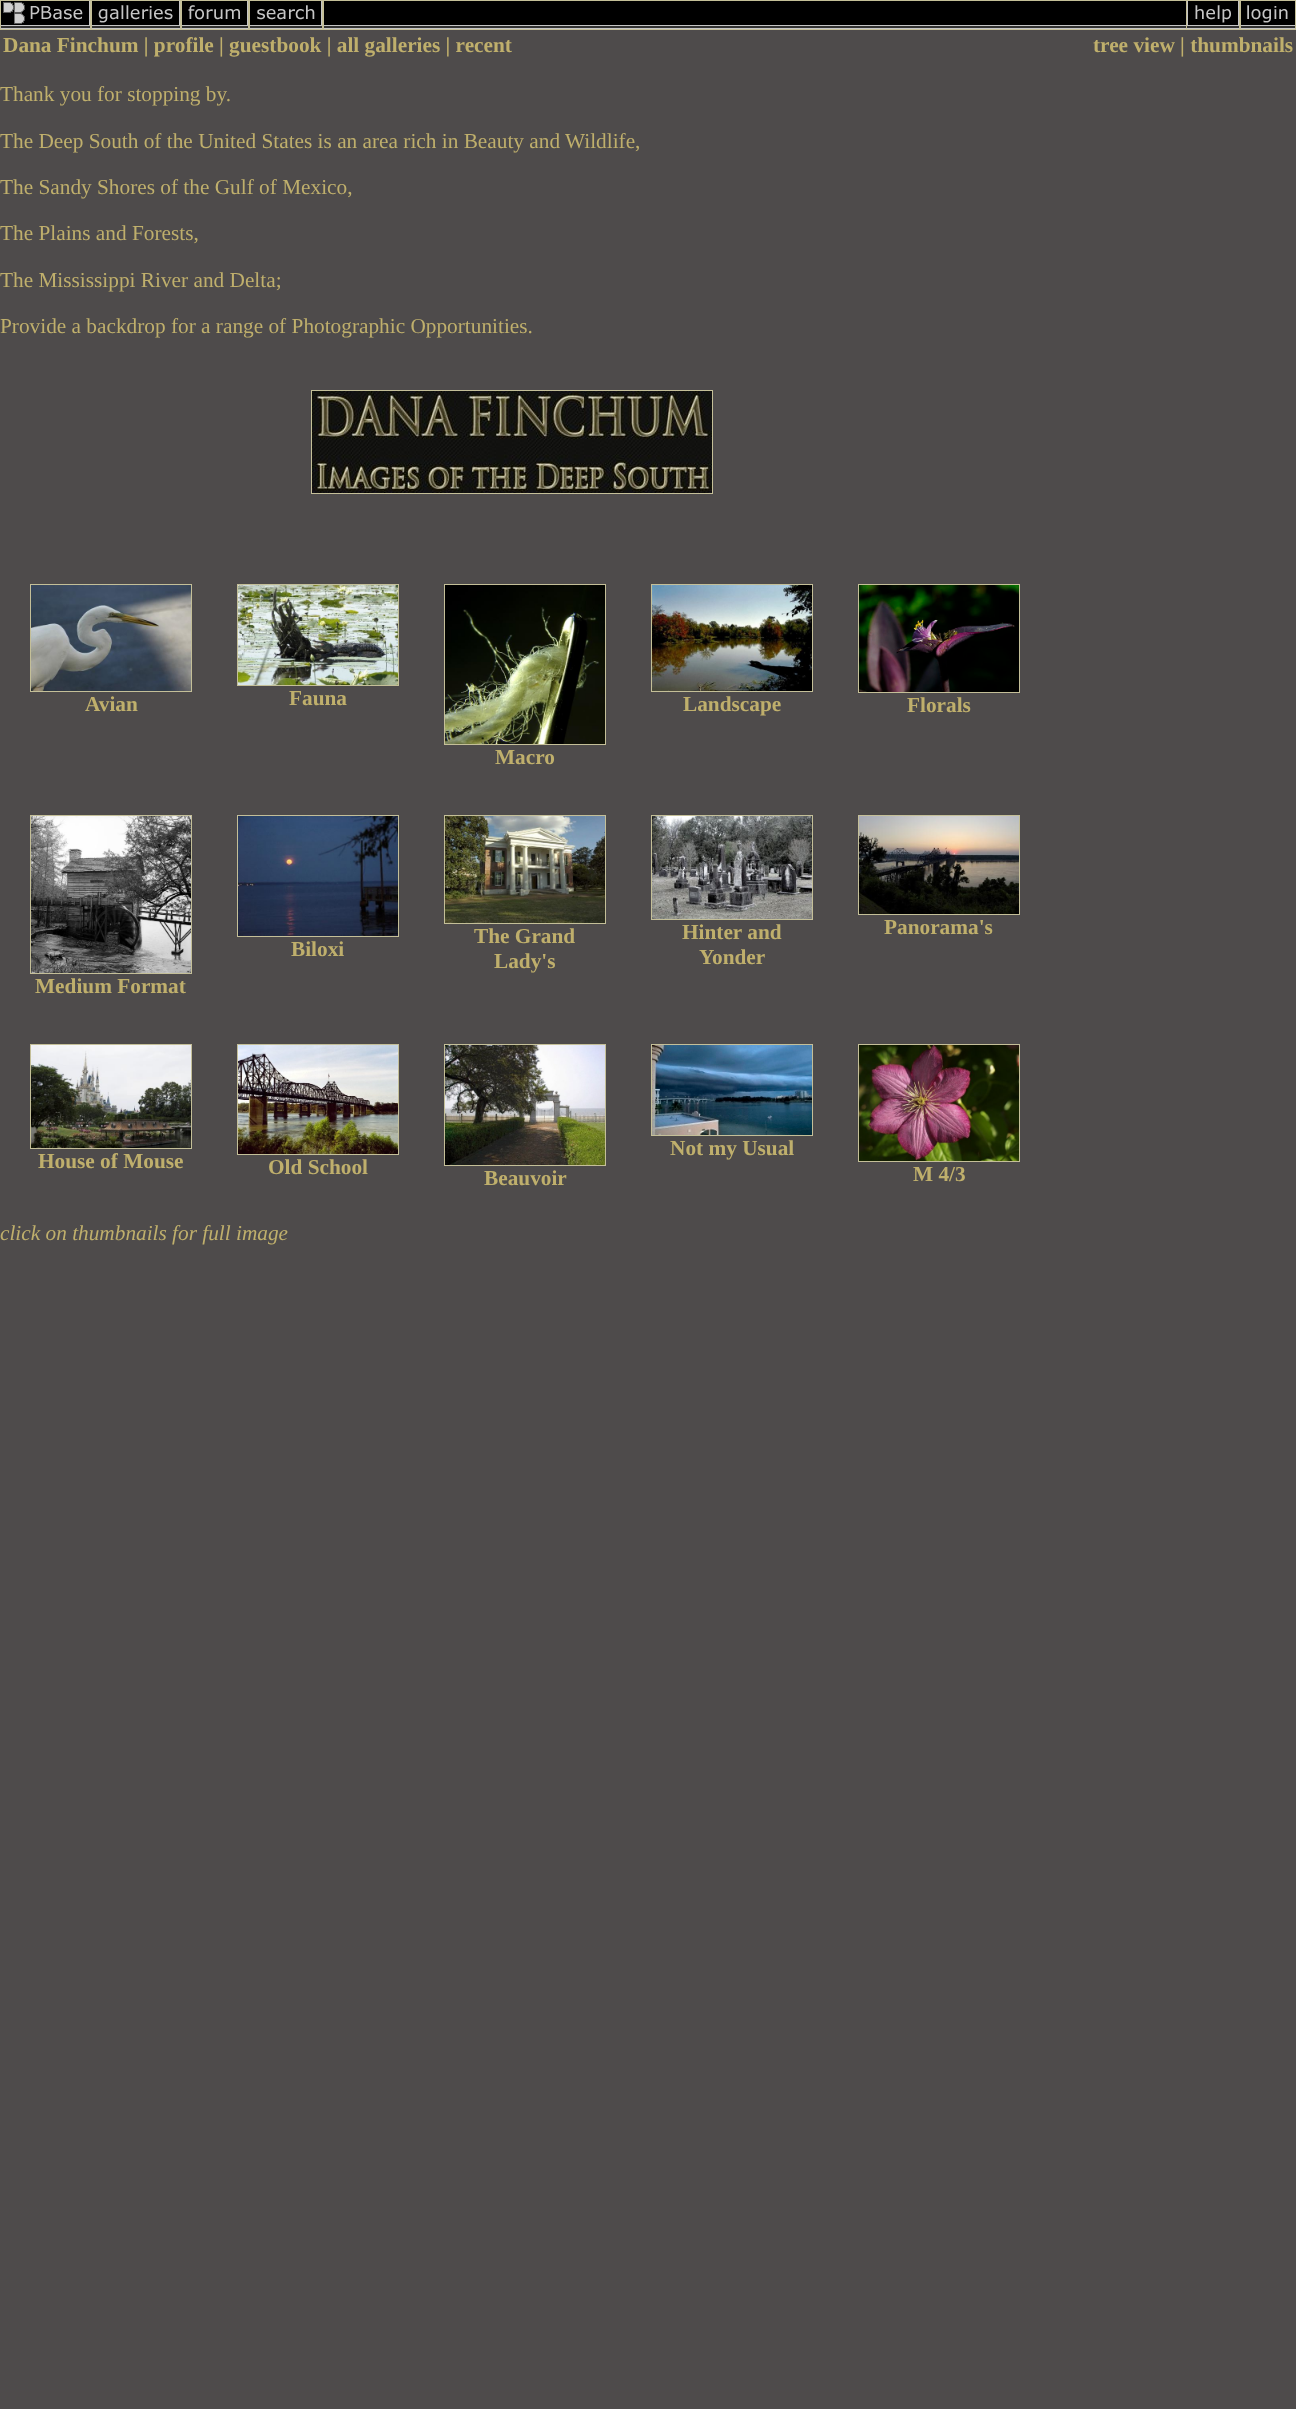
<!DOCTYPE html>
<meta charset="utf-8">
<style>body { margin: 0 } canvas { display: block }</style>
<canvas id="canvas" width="1296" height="2409"></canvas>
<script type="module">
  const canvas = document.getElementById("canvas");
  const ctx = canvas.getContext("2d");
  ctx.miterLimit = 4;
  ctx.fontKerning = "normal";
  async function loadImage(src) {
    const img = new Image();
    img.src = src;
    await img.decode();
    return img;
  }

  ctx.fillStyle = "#4e4b4b";
  ctx.fillRect(0, 0, 1296, 2409);
  ctx.strokeStyle = "#c4bf98";
  ctx.strokeRect(0.5, 0.5, 90, 29);
  ctx.drawImage(await loadImage("img1.png"), 1, 1, 89, 28);
  ctx.strokeRect(91.5, 0.5, 89, 29);
  ctx.drawImage(await loadImage("img2.png"), 92, 1, 88, 28);
  ctx.strokeRect(181.5, 0.5, 67, 29);
  ctx.drawImage(await loadImage("img3.png"), 182, 1, 66, 28);
  ctx.strokeRect(249.5, 0.5, 73, 29);
  ctx.drawImage(await loadImage("img4.png"), 250, 1, 72, 28);
  ctx.strokeRect(323.5, 0.5, 864, 29);
  ctx.drawImage(await loadImage("img5.png"), 324, 1, 862, 28);
  ctx.strokeRect(1186.5, 0.5, 53, 29);
  ctx.drawImage(await loadImage("img6.png"), 1187, 1, 52, 28);
  ctx.strokeRect(1240.5, 0.5, 55, 29);
  ctx.drawImage(await loadImage("img7.png"), 1241, 1, 54, 28);
  ctx.font = "bold 21.3px Liberation Serif";
  ctx.fillStyle = "#bfaf6c";
  ctx.fillText("Dana Finchum | profile | guestbook | all galleries | recent", 3, 52);
  ctx.fillText("tree view | thumbnails", 1093, 52);
  ctx.font = "21.3px Liberation Serif";
  ctx.fillText("Thank you for stopping by.", 0, 101);
  ctx.fillText("The Deep South of the United States is an area rich in Beauty and Wildlife,", 0, 148);
  ctx.fillText("The Sandy Shores of the Gulf of Mexico,", 0, 194);
  ctx.fillText("The Plains and Forests,", 0, 240);
  ctx.fillText("The Mississippi River and Delta;", 0, 287);
  ctx.fillText("Provide a backdrop for a range of Photographic Opportunities.", 0, 333);
  ctx.strokeRect(311.5, 390.5, 401, 103);
  ctx.drawImage(await loadImage("img8.png"), 312, 391, 400, 102);
  ctx.strokeRect(30.5, 584.5, 161, 107);
  ctx.drawImage(await loadImage("img9.png"), 31, 585, 160, 106);
  ctx.font = "bold 21.3px Liberation Serif";
  ctx.fillText("Avian", 85, 711);
  ctx.strokeRect(237.5, 584.5, 161, 101);
  ctx.drawImage(await loadImage("img10.png"), 238, 585, 160, 100);
  ctx.fillText("Fauna", 289, 705);
  ctx.strokeRect(651.5, 584.5, 161, 107);
  ctx.drawImage(await loadImage("img11.png"), 652, 585, 160, 106);
  ctx.fillText("Landscape", 683, 711);
  ctx.strokeRect(858.5, 584.5, 161, 108);
  ctx.drawImage(await loadImage("img12.png"), 859, 585, 160, 107);
  ctx.fillText("Florals", 907, 712);
  ctx.strokeRect(444.5, 584.5, 161, 160);
  ctx.drawImage(await loadImage("img13.png"), 445, 585, 160, 159);
  ctx.fillText("Macro", 495, 764);
  ctx.strokeRect(237.5, 815.5, 161, 121);
  ctx.drawImage(await loadImage("img14.png"), 238, 816, 160, 120);
  ctx.fillText("Biloxi", 291, 956);
  ctx.strokeRect(444.5, 815.5, 161, 108);
  ctx.drawImage(await loadImage("img15.png"), 445, 816, 160, 107);
  ctx.fillText("The Grand", 474, 943);
  ctx.fillText("Lady's", 494, 968);
  ctx.strokeRect(651.5, 815.5, 161, 104);
  ctx.drawImage(await loadImage("img16.png"), 652, 816, 160, 103);
  ctx.fillText("Hinter and", 682, 939);
  ctx.fillText("Yonder", 699, 964);
  ctx.strokeRect(858.5, 815.5, 161, 99);
  ctx.drawImage(await loadImage("img17.png"), 859, 816, 160, 98);
  ctx.fillText("Panorama's", 884, 934);
  ctx.strokeRect(30.5, 815.5, 161, 158);
  ctx.drawImage(await loadImage("img18.png"), 31, 816, 160, 157);
  ctx.fillText("Medium Format", 35, 993);
  ctx.strokeRect(30.5, 1044.5, 161, 104);
  ctx.drawImage(await loadImage("img19.png"), 31, 1045, 160, 103);
  ctx.fillText("House of Mouse", 38, 1168);
  ctx.strokeRect(237.5, 1044.5, 161, 110);
  ctx.drawImage(await loadImage("img20.png"), 238, 1045, 160, 109);
  ctx.fillText("Old School", 268, 1174);
  ctx.strokeRect(444.5, 1044.5, 161, 121);
  ctx.drawImage(await loadImage("img21.png"), 445, 1045, 160, 120);
  ctx.fillText("Beauvoir", 484, 1185);
  ctx.strokeRect(651.5, 1044.5, 161, 91);
  ctx.drawImage(await loadImage("img22.png"), 652, 1045, 160, 90);
  ctx.fillText("Not my Usual", 670, 1155);
  ctx.strokeRect(858.5, 1044.5, 161, 117);
  ctx.drawImage(await loadImage("img23.png"), 859, 1045, 160, 116);
  ctx.fillText("M 4/3", 913, 1181);
  ctx.font = "italic 21.3px Liberation Serif";
  ctx.fillText("click on thumbnails for full image", 0, 1240);
</script>
